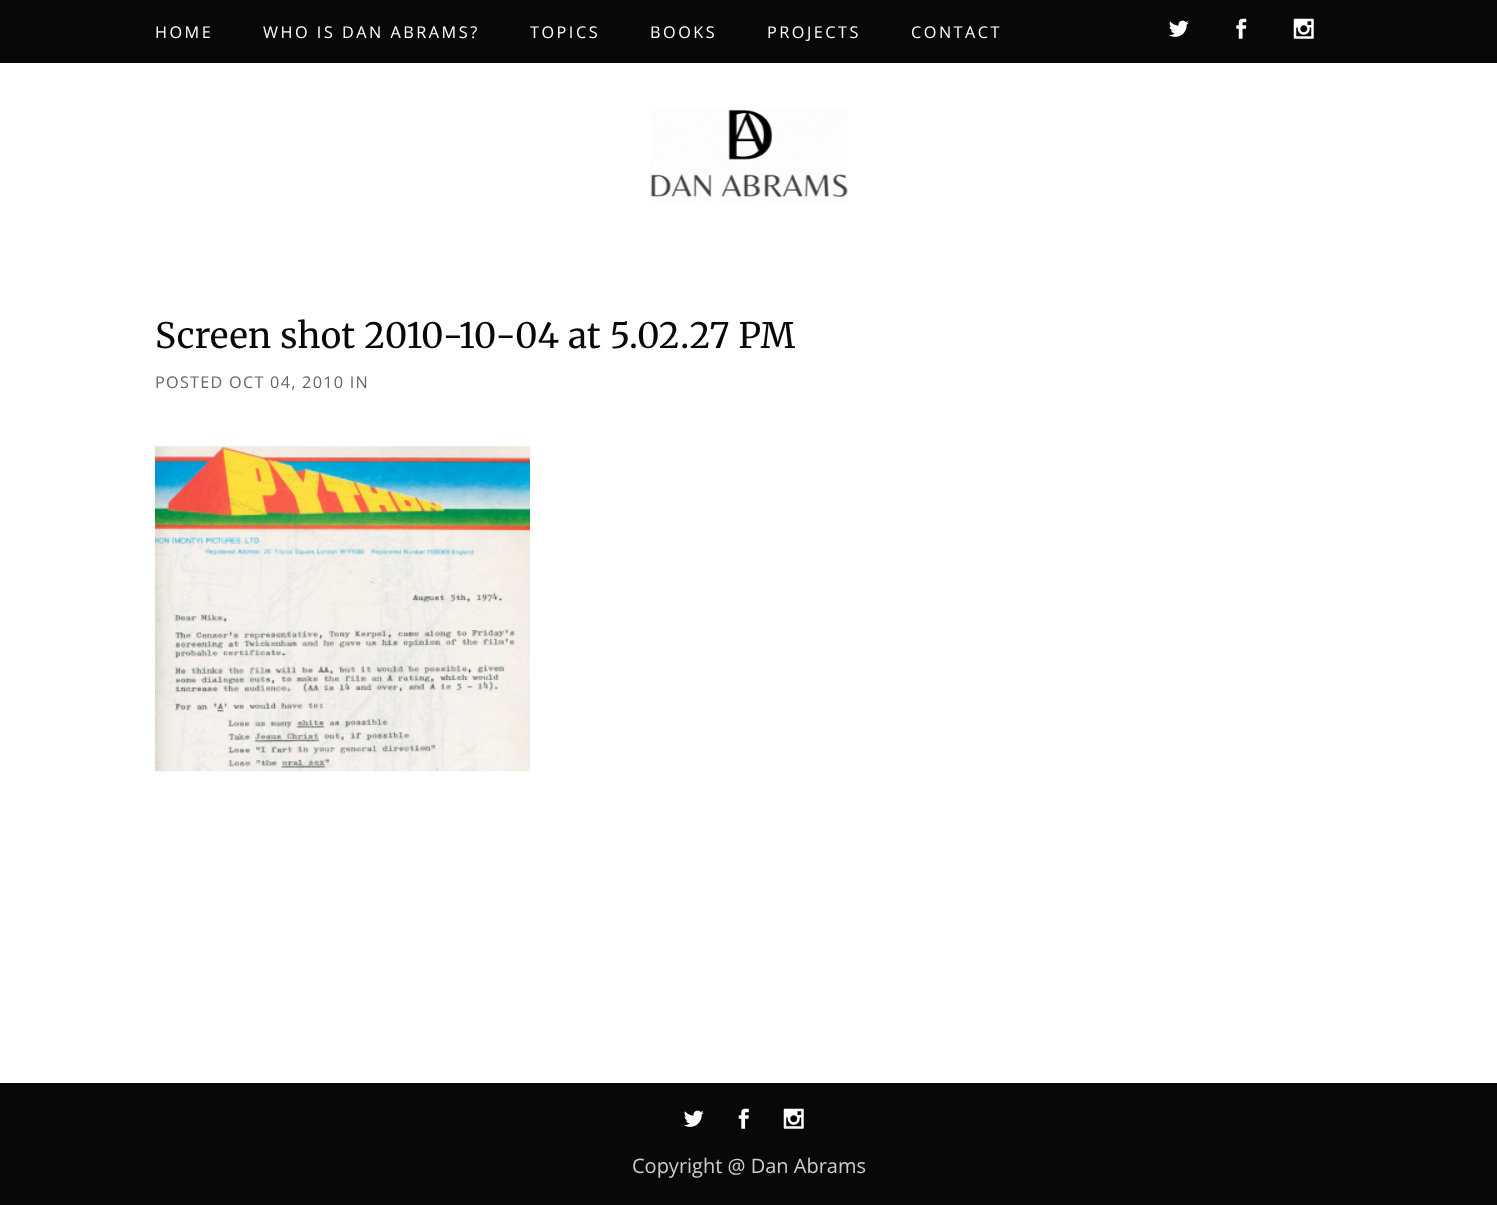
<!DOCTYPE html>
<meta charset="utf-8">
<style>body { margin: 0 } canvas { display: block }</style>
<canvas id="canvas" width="1497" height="1205"></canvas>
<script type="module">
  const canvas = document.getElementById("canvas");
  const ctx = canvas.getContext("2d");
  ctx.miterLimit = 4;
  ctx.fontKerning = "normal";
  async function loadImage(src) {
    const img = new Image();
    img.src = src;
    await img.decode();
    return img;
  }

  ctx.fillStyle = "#ffffff";
  ctx.fillRect(0, 0, 1497, 1205);
  ctx.fillStyle = "#080808";
  ctx.fillRect(0, 0, 1497, 63);
  ctx.letterSpacing = "2.5px";
  ctx.font = "16.25px Open Sans";
  ctx.fillStyle = "#ffffff";
  ctx.fillText("HOME", 155, 38);
  ctx.fillText("WHO IS DAN ABRAMS?", 263, 38);
  ctx.fillText("TOPICS", 530, 38);
  ctx.fillText("BOOKS", 650, 38);
  ctx.fillText("PROJECTS", 767, 38);
  ctx.fillText("CONTACT", 911, 38);
  ctx.drawImage(await loadImage("img1.png"), 1169, 20, 20, 17);
  ctx.drawImage(await loadImage("img2.png"), 1236, 18, 11, 21);
  ctx.drawImage(await loadImage("img3.png"), 1293, 18, 21, 21);
  ctx.drawImage(await loadImage("img4.png"), 650, 109, 198, 93);
  ctx.letterSpacing = "0.4px";
  ctx.font = "35px Merriweather";
  ctx.fillStyle = "#080808";
  ctx.fillText("Screen shot 2010-10-04 at 5.02.27 PM", 155, 348);
  ctx.letterSpacing = "1.25px";
  ctx.font = "16.25px Open Sans";
  ctx.fillStyle = "#656565";
  ctx.fillText("POSTED OCT 04, 2010 IN", 155, 388);
  ctx.drawImage(await loadImage("img5.png"), 155, 446, 375, 326);
  ctx.fillStyle = "#080808";
  ctx.fillRect(0, 1083, 1497, 122);
  ctx.drawImage(await loadImage("img1.png"), 684, 1110, 20, 17);
  ctx.drawImage(await loadImage("img6.png"), 738, 1108, 11, 21);
  ctx.drawImage(await loadImage("img3.png"), 783, 1108, 21, 21);
  ctx.letterSpacing = "0px";
  ctx.font = "20px Open Sans";
  ctx.fillStyle = "#cecece";
  ctx.fillText("Copyright @ Dan Abrams", 632, 1173);
</script>
